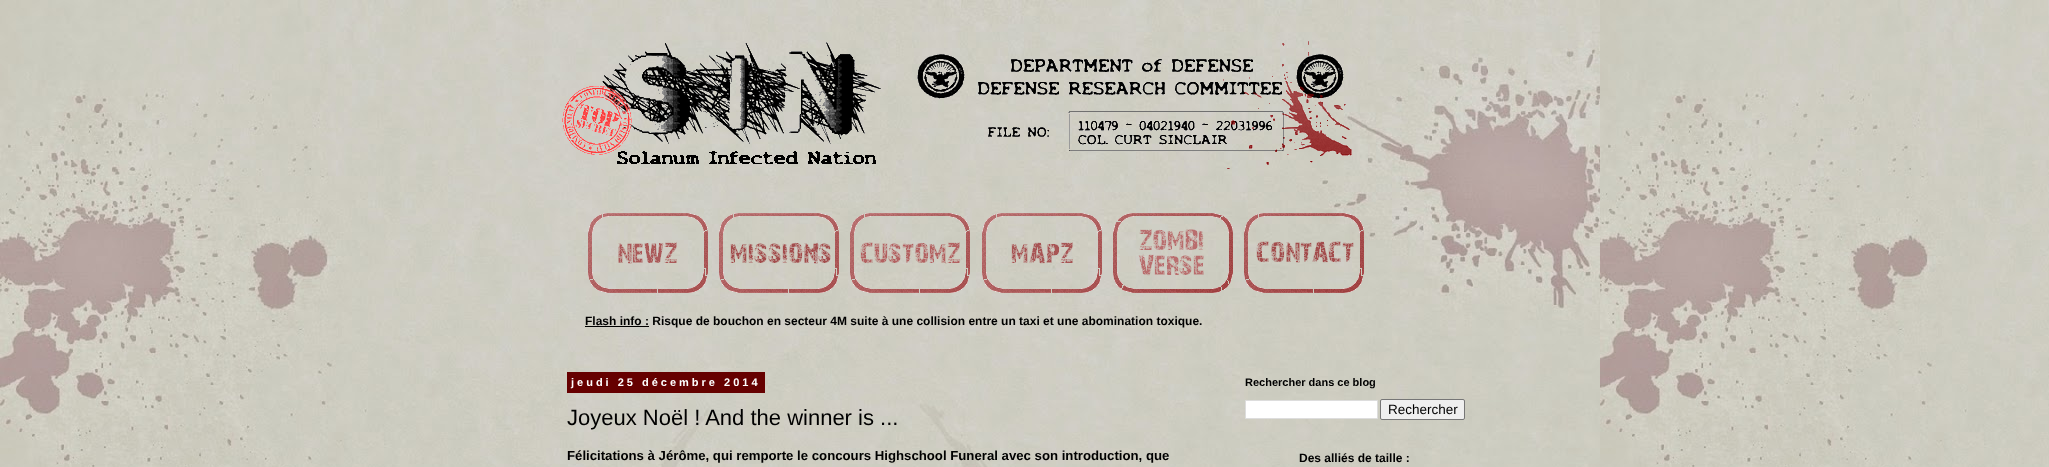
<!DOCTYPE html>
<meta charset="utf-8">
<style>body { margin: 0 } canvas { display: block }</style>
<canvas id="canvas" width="2049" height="467"></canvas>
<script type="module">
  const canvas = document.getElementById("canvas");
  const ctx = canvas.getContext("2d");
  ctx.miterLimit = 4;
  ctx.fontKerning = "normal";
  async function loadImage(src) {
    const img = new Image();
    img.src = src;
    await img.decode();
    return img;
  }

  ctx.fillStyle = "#ffffff";
  ctx.fillRect(0, 0, 2049, 467);
  ctx.drawImage(await loadImage("img1.png"), 0, 0, 2049, 467);
  ctx.drawImage(await loadImage("img2.png"), 562, 41, 790, 128);
  ctx.drawImage(await loadImage("img3.png"), 588, 213, 120, 80);
  ctx.drawImage(await loadImage("img4.png"), 719, 213, 120, 80);
  ctx.drawImage(await loadImage("img5.png"), 850, 213, 120, 80);
  ctx.drawImage(await loadImage("img6.png"), 982, 213, 120, 80);
  ctx.drawImage(await loadImage("img7.png"), 1113, 213, 120, 80);
  ctx.drawImage(await loadImage("img8.png"), 1244, 213, 120, 80);
  ctx.fillStyle = "#000000";
  ctx.fillRect(585, 326, 64, 1);
  ctx.font = "bold 12px Liberation Sans";
  ctx.fillText("Flash info : Risque de bouchon en secteur 4M suite à une collision entre un taxi et une abomination toxique.", 585, 325);
  ctx.fillStyle = "#660000";
  ctx.fillRect(567, 372, 198, 21);
  ctx.letterSpacing = "3px";
  ctx.font = "bold 11px Liberation Sans";
  ctx.fillStyle = "#ffffff";
  ctx.fillText("jeudi 25 décembre 2014", 571, 386);
  ctx.letterSpacing = "0px";
  ctx.font = "22px Liberation Sans";
  ctx.fillStyle = "#000000";
  ctx.fillText("Joyeux Noël ! And the winner is ...", 567, 425);
  ctx.font = "bold 13.2px Liberation Sans";
  ctx.fillText("Félicitations à Jérôme, qui remporte le concours Highschool Funeral avec son introduction, que", 567, 460);
  ctx.font = "bold 11px Liberation Sans";
  ctx.fillText("Rechercher dans ce blog", 1245, 386);
  ctx.fillStyle = "#ffffff";
  ctx.beginPath();
  ctx.rect(1245.5, 400.5, 132, 18);
  ctx.fill();
  ctx.strokeStyle = "#dddddd";
  ctx.stroke();
  ctx.fillStyle = "#efefef";
  ctx.beginPath();
  ctx.roundRect(1380.5, 399.5, 84, 20, 1.5);
  ctx.fill();
  ctx.strokeStyle = "#767676";
  ctx.stroke();
  ctx.font = "13.5px Liberation Sans";
  ctx.fillStyle = "#000000";
  ctx.fillText("Rechercher", 1388, 414);
  ctx.font = "bold 12px Liberation Sans";
  ctx.fillText("Des alliés de taille :", 1299, 462);
</script>
